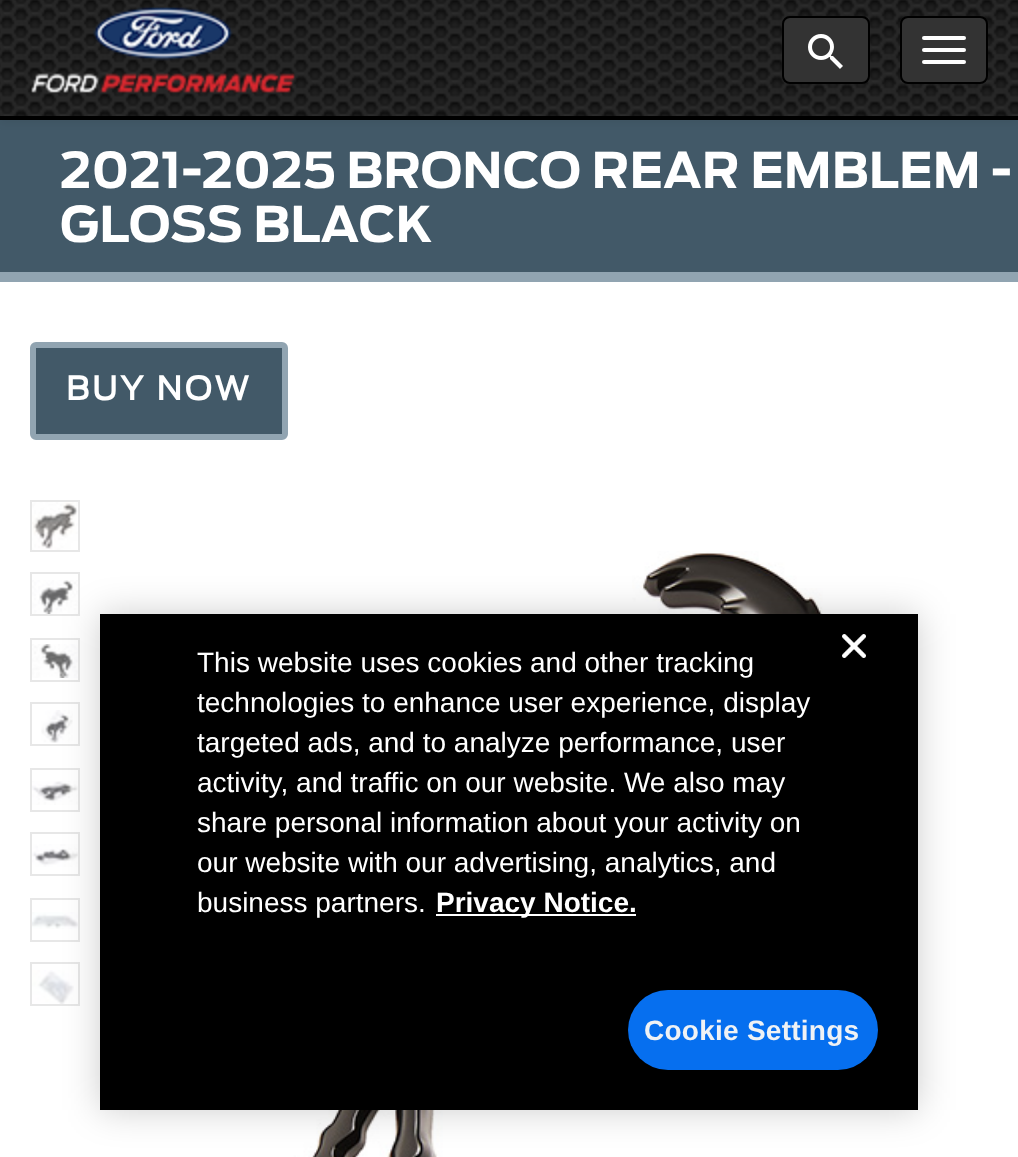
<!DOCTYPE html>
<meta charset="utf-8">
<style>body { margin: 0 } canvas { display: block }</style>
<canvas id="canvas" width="1018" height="1157"></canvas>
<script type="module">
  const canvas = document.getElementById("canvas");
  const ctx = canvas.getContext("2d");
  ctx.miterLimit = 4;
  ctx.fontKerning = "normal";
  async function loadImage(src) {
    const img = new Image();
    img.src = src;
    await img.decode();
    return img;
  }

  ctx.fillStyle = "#ffffff";
  ctx.fillRect(0, 0, 1018, 1157);
  ctx.fillStyle = "#425968";
  ctx.fillRect(0, 120, 1018, 152);
  ctx.fillStyle = "rgba(0, 0, 0, 0.07)";
  ctx.filter = "blur(5px)";
  ctx.beginPath();
  ctx.rect(0, 2, 1018, 120);
  ctx.fill();
  ctx.filter = "none";
  ctx.drawImage(await loadImage("img1.png"), 0, 0, 1018, 116);
  ctx.fillStyle = "#000000";
  ctx.fillRect(0, 116, 1018, 4);
  ctx.drawImage(await loadImage("img2.png"), 31, 7, 264, 86);
  ctx.fillStyle = "#333333";
  ctx.beginPath();
  ctx.roundRect(783, 17, 86, 66, 7);
  ctx.fill();
  ctx.strokeStyle = "#000000";
  ctx.lineWidth = 2;
  ctx.stroke();
  ctx.drawImage(await loadImage("img3.png"), 808, 34, 35, 35);
  ctx.beginPath();
  ctx.roundRect(901, 17, 86, 66, 7);
  ctx.fill();
  ctx.stroke();
  ctx.fillStyle = "#ffffff";
  ctx.beginPath();
  ctx.roundRect(922, 36, 44, 4, 2);
  ctx.fill();
  ctx.beginPath();
  ctx.roundRect(922, 48, 44, 4, 2);
  ctx.fill();
  ctx.beginPath();
  ctx.roundRect(922, 60, 44, 4, 2);
  ctx.fill();
  ctx.fillStyle = "#91a4b1";
  ctx.fillRect(0, 272, 1018, 10);
  ctx.font = "bold 49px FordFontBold";
  ctx.fillStyle = "#ffffff";
  ctx.fillText("2021-2025 BRONCO REAR EMBLEM -", 60, 188);
  ctx.fillText("GLOSS BLACK", 60, 242);
  ctx.fillStyle = "#425968";
  ctx.beginPath();
  ctx.roundRect(33, 345, 252, 92, 3);
  ctx.fill();
  ctx.strokeStyle = "#91a4b1";
  ctx.lineWidth = 6;
  ctx.stroke();
  ctx.letterSpacing = "3px";
  ctx.font = "bold 32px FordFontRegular";
  ctx.fillStyle = "#ffffff";
  ctx.fillText("BUY NOW", 66, 400);
  ctx.strokeStyle = "#e7e7e7";
  ctx.lineWidth = 2;
  ctx.strokeRect(31, 501, 48, 50);
  ctx.drawImage(await loadImage("img4.png"), 32, 502, 46, 48);
  ctx.strokeRect(31, 573, 48, 42);
  ctx.drawImage(await loadImage("img5.png"), 32, 580, 46, 34);
  ctx.strokeRect(31, 639, 48, 42);
  ctx.drawImage(await loadImage("img6.png"), 32, 644, 46, 34);
  ctx.strokeRect(31, 703, 48, 42);
  ctx.drawImage(await loadImage("img7.png"), 41, 710, 32, 33);
  ctx.strokeRect(31, 769, 48, 42);
  ctx.drawImage(await loadImage("img8.png"), 32, 781, 46, 24);
  ctx.strokeRect(31, 833, 48, 42);
  ctx.drawImage(await loadImage("img9.png"), 32, 844, 46, 23);
  ctx.strokeRect(31, 899, 48, 42);
  ctx.drawImage(await loadImage("img10.png"), 32, 912, 46, 17);
  ctx.strokeRect(31, 963, 48, 42);
  ctx.drawImage(await loadImage("img11.png"), 32, 970, 42, 34);
  ctx.drawImage(await loadImage("img12.png"), 165, 551, 669, 606);
  ctx.fillStyle = "rgba(0, 0, 0, 0.2)";
  ctx.filter = "blur(18px)";
  ctx.beginPath();
  ctx.rect(100, 614, 818, 496);
  ctx.fill();
  ctx.filter = "none";
  ctx.fillStyle = "#000000";
  ctx.fillRect(100, 614, 818, 496);
  ctx.drawImage(await loadImage("img13.png"), 842, 634, 24, 24);
  ctx.letterSpacing = "0px";
  ctx.font = "28px Liberation Sans";
  ctx.fillStyle = "#ffffff";
  ctx.fillText("This website uses cookies and other tracking", 197, 672);
  ctx.fillText("technologies to enhance user experience, display", 197, 712);
  ctx.fillText("targeted ads, and to analyze performance, user", 197, 752);
  ctx.fillText("activity, and traffic on our website. We also may", 197, 792);
  ctx.fillText("share personal information about your activity on", 197, 832);
  ctx.fillText("our website with our advertising, analytics, and", 197, 872);
  ctx.fillText("business partners.", 197, 912);
  ctx.fillRect(436, 914, 200, 2);
  ctx.font = "bold 28px Liberation Sans";
  ctx.fillText("Privacy Notice.", 436, 912);
  ctx.fillStyle = "#066fef";
  ctx.beginPath();
  ctx.roundRect(628, 990, 250, 80, 40);
  ctx.fill();
  ctx.letterSpacing = "0.25px";
  ctx.fillStyle = "#eff2f5";
  ctx.fillText("Cookie Settings", 644, 1040);
</script>
